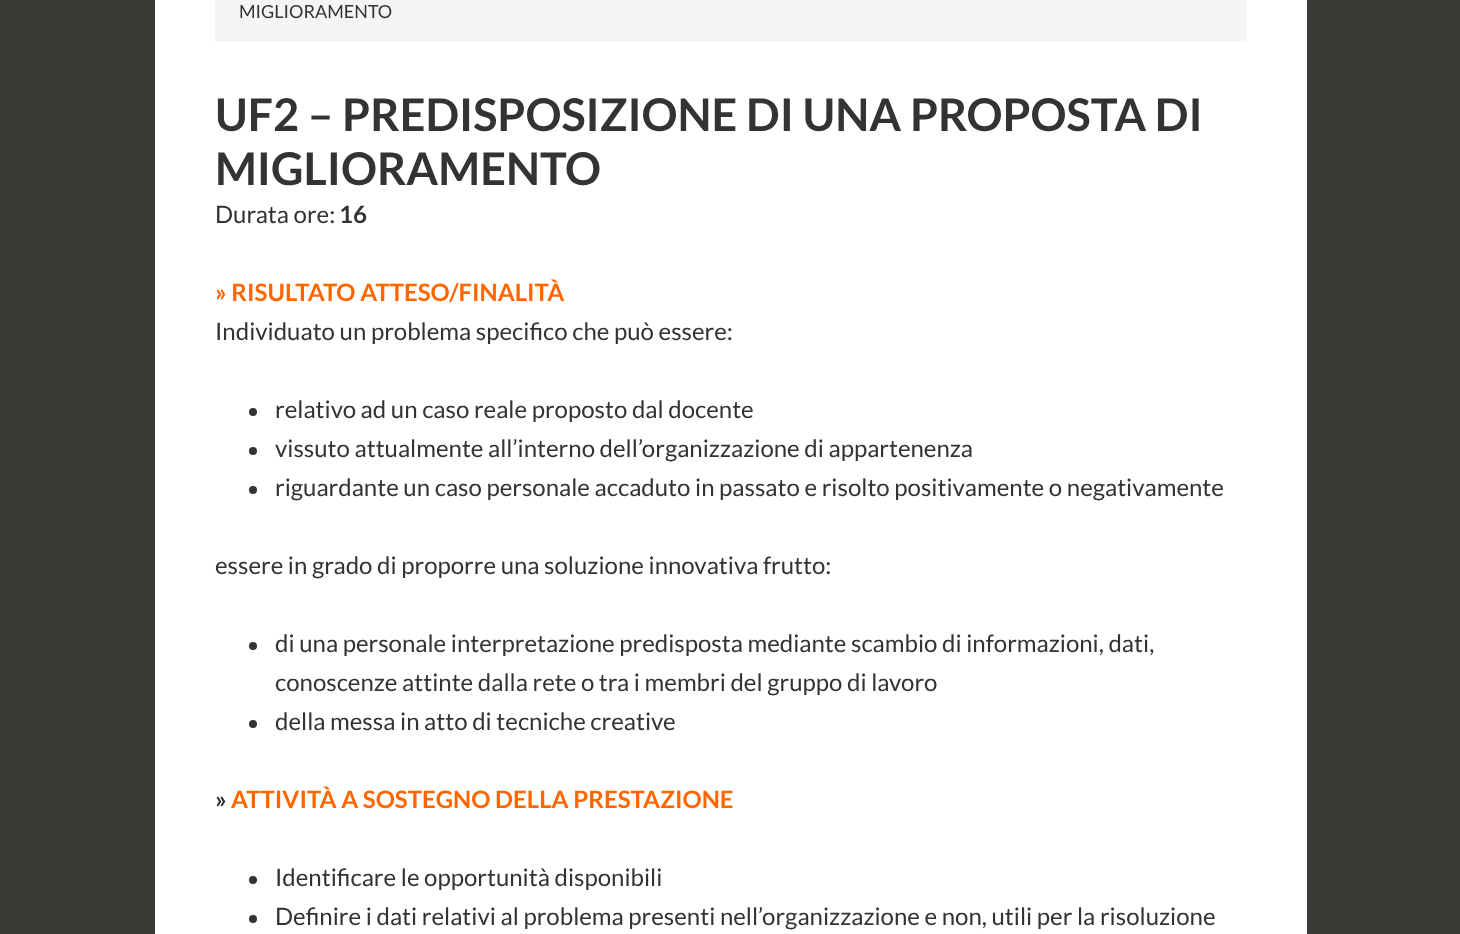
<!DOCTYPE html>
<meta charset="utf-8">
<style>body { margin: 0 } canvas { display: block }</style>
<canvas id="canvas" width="1460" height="934"></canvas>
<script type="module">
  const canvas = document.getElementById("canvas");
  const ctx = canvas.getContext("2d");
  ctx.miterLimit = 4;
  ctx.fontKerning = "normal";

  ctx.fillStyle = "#3c3a36";
  ctx.fillRect(0, 0, 1460, 934);
  ctx.fillStyle = "#ffffff";
  ctx.fillRect(155, 0, 1152, 934);
  ctx.fillStyle = "#f5f5f5";
  ctx.fillRect(215, 0, 1032, 42);
  ctx.font = "18px Lato";
  ctx.fillStyle = "#333333";
  ctx.fillText("MIGLIORAMENTO", 239, 18);
  ctx.font = "bold 45px Lato";
  ctx.fillText("UF2 – PREDISPOSIZIONE DI UNA PROPOSTA DI", 215, 131);
  ctx.fillText("MIGLIORAMENTO", 215, 185);
  ctx.font = "24px Lato";
  ctx.fillText("Durata ore:", 215, 223);
  ctx.font = "bold 24px Lato";
  ctx.fillText("16", 339, 223);
  ctx.fillStyle = "#ff6600";
  ctx.fillText("» RISULTATO ATTESO/FINALITÀ", 215, 301);
  ctx.font = "24px Lato";
  ctx.fillStyle = "#333333";
  ctx.fillText("Individuato un problema specifico che può essere:", 215, 340);
  ctx.beginPath();
  ctx.arc(253, 412, 4, 0, Math.PI * 2);
  ctx.fill();
  ctx.fillText("relativo ad un caso reale proposto dal docente", 275, 418);
  ctx.beginPath();
  ctx.arc(253, 451, 4, 0, Math.PI * 2);
  ctx.fill();
  ctx.fillText("vissuto attualmente all’interno dell’organizzazione di appartenenza", 275, 457);
  ctx.beginPath();
  ctx.arc(253, 490, 4, 0, Math.PI * 2);
  ctx.fill();
  ctx.fillText("riguardante un caso personale accaduto in passato e risolto positivamente o negativamente", 275, 496);
  ctx.fillText("essere in grado di proporre una soluzione innovativa frutto:", 215, 574);
  ctx.beginPath();
  ctx.arc(253, 646, 4, 0, Math.PI * 2);
  ctx.fill();
  ctx.fillText("di una personale interpretazione predisposta mediante scambio di informazioni, dati,", 275, 652);
  ctx.fillText("conoscenze attinte dalla rete o tra i membri del gruppo di lavoro", 275, 691);
  ctx.beginPath();
  ctx.arc(253, 724, 4, 0, Math.PI * 2);
  ctx.fill();
  ctx.fillText("della messa in atto di tecniche creative", 275, 730);
  ctx.font = "bold 24px Lato";
  ctx.fillText("»", 215, 808);
  ctx.fillStyle = "#ff6600";
  ctx.fillText("ATTIVITÀ A SOSTEGNO DELLA PRESTAZIONE", 231, 808);
  ctx.fillStyle = "#333333";
  ctx.beginPath();
  ctx.arc(253, 880, 4, 0, Math.PI * 2);
  ctx.fill();
  ctx.font = "24px Lato";
  ctx.fillText("Identificare le opportunità disponibili", 275, 886);
  ctx.beginPath();
  ctx.arc(253, 919, 4, 0, Math.PI * 2);
  ctx.fill();
  ctx.fillText("Definire i dati relativi al problema presenti nell’organizzazione e non, utili per la risoluzione", 275, 925);
</script>
